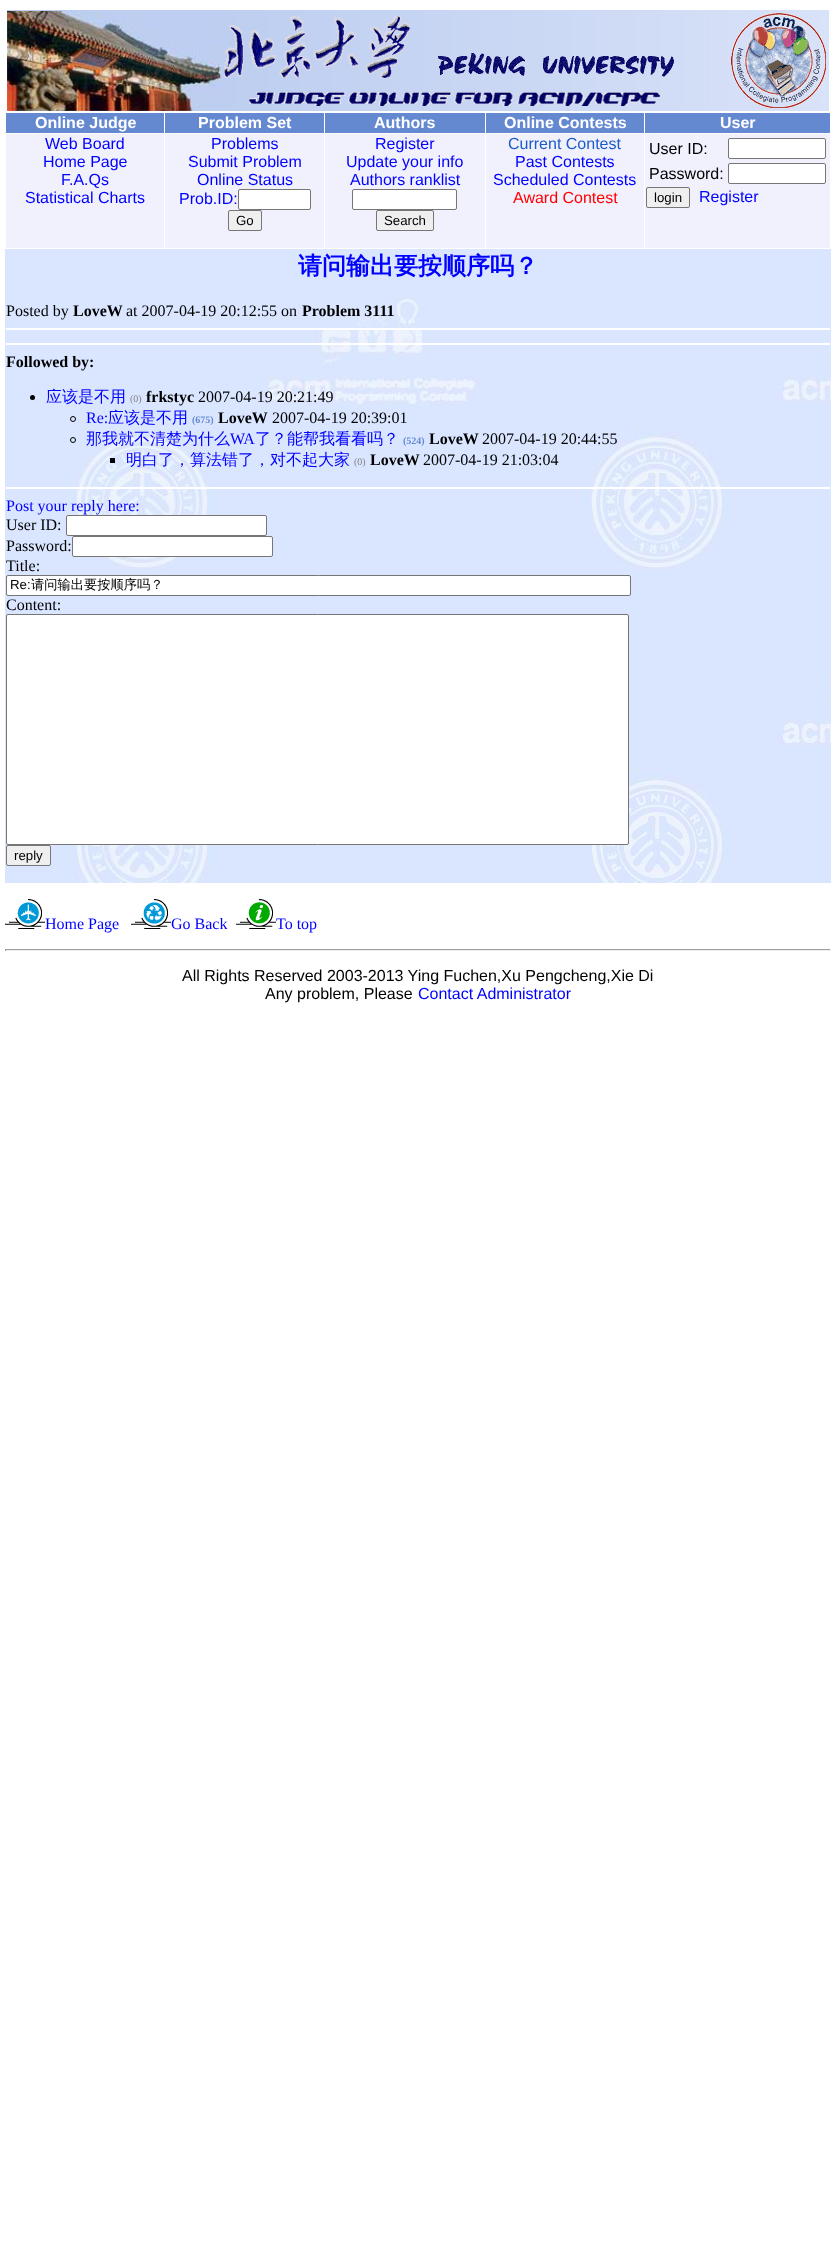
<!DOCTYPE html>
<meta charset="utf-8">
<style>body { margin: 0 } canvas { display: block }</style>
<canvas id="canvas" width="836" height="2256"></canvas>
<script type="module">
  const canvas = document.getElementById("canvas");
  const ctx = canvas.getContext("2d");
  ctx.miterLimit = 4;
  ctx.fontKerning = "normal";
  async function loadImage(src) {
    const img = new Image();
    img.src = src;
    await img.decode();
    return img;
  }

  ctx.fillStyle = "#ffffff";
  ctx.fillRect(0, 0, 836, 2256);
  ctx.fillStyle = "#becef1";
  ctx.fillRect(7, 10, 214, 1);
  ctx.drawImage(await loadImage("img1.png"), 7, 11, 214, 100);
  ctx.drawImage(await loadImage("img2.png"), 221, 10, 608, 101);
  ctx.drawImage(await loadImage("img3.png"), 224, 16, 450, 90);
  ctx.drawImage(await loadImage("img4.png"), 731, 13, 95, 95);
  ctx.fillStyle = "#6589d1";
  ctx.fillRect(6, 113, 824, 20);
  ctx.font = "bold 16px Liberation Sans";
  ctx.fillStyle = "#ffffff";
  ctx.fillText("Online Judge", 35, 128);
  ctx.fillText("Problem Set", 198, 128);
  ctx.fillText("Authors", 374, 128);
  ctx.fillText("Online Contests", 504, 128);
  ctx.fillText("User", 720, 128);
  ctx.fillStyle = "#f1f1fd";
  ctx.fillRect(6, 134, 824, 114);
  ctx.font = "16px Liberation Sans";
  ctx.fillStyle = "#0000ff";
  ctx.fillText("Web Board", 45, 149);
  ctx.fillText("Home Page", 43, 167);
  ctx.fillText("F.A.Qs", 61, 185);
  ctx.fillText("Statistical Charts", 25, 203);
  ctx.fillStyle = "#ffffff";
  ctx.fillRect(164, 112, 1, 137);
  ctx.fillStyle = "#0000ff";
  ctx.fillText("Problems", 211, 149);
  ctx.fillText("Submit Problem", 188, 167);
  ctx.fillText("Online Status", 197, 185);
  ctx.fillText("Prob.ID:", 179, 204);
  ctx.fillStyle = "#ffffff";
  ctx.beginPath();
  ctx.roundRect(238.5, 189.5, 72, 20, 1.5);
  ctx.fill();
  ctx.strokeStyle = "#767676";
  ctx.stroke();
  ctx.fillStyle = "#efefef";
  ctx.beginPath();
  ctx.roundRect(228.5, 210.5, 33, 20, 1.5);
  ctx.fill();
  ctx.stroke();
  ctx.font = "13.25px Liberation Sans";
  ctx.fillStyle = "#000000";
  ctx.fillText("Go", 236, 225);
  ctx.fillStyle = "#ffffff";
  ctx.fillRect(324, 112, 1, 137);
  ctx.font = "16px Liberation Sans";
  ctx.fillStyle = "#0000ff";
  ctx.fillText("Register", 375, 149);
  ctx.fillText("Update your info", 346, 167);
  ctx.fillText("Authors ranklist", 350, 185);
  ctx.fillStyle = "#ffffff";
  ctx.beginPath();
  ctx.roundRect(352.5, 189.5, 104, 20, 1.5);
  ctx.fill();
  ctx.stroke();
  ctx.fillStyle = "#efefef";
  ctx.beginPath();
  ctx.roundRect(376.5, 210.5, 57, 20, 1.5);
  ctx.fill();
  ctx.stroke();
  ctx.font = "13.25px Liberation Sans";
  ctx.fillStyle = "#000000";
  ctx.fillText("Search", 384, 225);
  ctx.fillStyle = "#ffffff";
  ctx.fillRect(485, 112, 1, 137);
  ctx.font = "16px Liberation Sans";
  ctx.fillStyle = "#1a5cc8";
  ctx.fillText("Current Contest", 508, 149);
  ctx.fillStyle = "#0000ff";
  ctx.fillText("Past Contests", 515, 167);
  ctx.fillText("Scheduled Contests", 493, 185);
  ctx.fillStyle = "#ff0000";
  ctx.fillText("Award Contest", 513, 203);
  ctx.fillStyle = "#ffffff";
  ctx.fillRect(644, 112, 1, 137);
  ctx.fillStyle = "#000000";
  ctx.fillText("User ID:", 649, 154);
  ctx.fillStyle = "#ffffff";
  ctx.beginPath();
  ctx.roundRect(728.5, 138.5, 97, 20, 1.5);
  ctx.fill();
  ctx.stroke();
  ctx.fillStyle = "#000000";
  ctx.fillText("Password:", 649, 179);
  ctx.fillStyle = "#ffffff";
  ctx.beginPath();
  ctx.roundRect(728.5, 163.5, 97, 20, 1.5);
  ctx.fill();
  ctx.stroke();
  ctx.fillStyle = "#efefef";
  ctx.beginPath();
  ctx.roundRect(646.5, 187.5, 43, 20, 1.5);
  ctx.fill();
  ctx.stroke();
  ctx.font = "13.25px Liberation Sans";
  ctx.fillStyle = "#000000";
  ctx.fillText("login", 654, 202);
  ctx.font = "16px Liberation Sans";
  ctx.fillStyle = "#0000ff";
  ctx.fillText("Register", 699, 202);
  ctx.drawImage(await loadImage("img5.png"), 5, 249, 826, 634);
  ctx.font = "bold 24px WenQuanYi Zen Hei";
  ctx.fillText("请问输出要按顺序吗？", 298, 274);
  ctx.font = "16px Liberation Serif";
  ctx.fillStyle = "#000000";
  ctx.fillText("Posted by", 6, 316);
  ctx.font = "bold 16px Liberation Serif";
  ctx.fillText("LoveW", 73, 316);
  ctx.font = "16px Liberation Serif";
  ctx.fillText("at 2007-04-19 20:12:55 on", 126, 316);
  ctx.font = "bold 16px Liberation Serif";
  ctx.fillText("Problem 3111", 302, 316);
  ctx.fillStyle = "#ffffff";
  ctx.fillRect(6, 328, 824, 2);
  ctx.fillRect(6, 343, 824, 2);
  ctx.fillStyle = "#000000";
  ctx.fillText("Followed by:", 6, 367);
  ctx.beginPath();
  ctx.arc(32.5, 397.5, 2.5, 0, Math.PI * 2);
  ctx.fill();
  ctx.font = "500 16px WenQuanYi Zen Hei";
  ctx.fillStyle = "#0000ff";
  ctx.fillText("应该是不用", 46, 402);
  ctx.font = "10px Liberation Serif";
  ctx.fillStyle = "#808080";
  ctx.fillText("(0)", 130, 402);
  ctx.font = "bold 16px Liberation Serif";
  ctx.fillStyle = "#000000";
  ctx.fillText("frkstyc", 146, 402);
  ctx.font = "16px Liberation Serif";
  ctx.fillText("2007-04-19 20:21:49", 198, 402);
  ctx.beginPath();
  ctx.arc(73, 419, 2.5, 0, Math.PI * 2);
  ctx.strokeStyle = "#000000";
  ctx.stroke();
  ctx.fillStyle = "#0000ff";
  ctx.fillText("Re:", 86, 423);
  ctx.font = "500 16px WenQuanYi Zen Hei";
  ctx.fillText("应该是不用", 108, 423);
  ctx.font = "bold 10px Liberation Serif";
  ctx.fillStyle = "#6589d1";
  ctx.fillText("(675)", 192, 423);
  ctx.font = "bold 16px Liberation Serif";
  ctx.fillStyle = "#000000";
  ctx.fillText("LoveW", 218, 423);
  ctx.font = "16px Liberation Serif";
  ctx.fillText("2007-04-19 20:39:01", 272, 423);
  ctx.beginPath();
  ctx.arc(73, 440, 2.5, 0, Math.PI * 2);
  ctx.stroke();
  ctx.font = "500 16px WenQuanYi Zen Hei";
  ctx.fillStyle = "#0000ff";
  ctx.fillText("那我就不清楚为什么", 86, 444);
  ctx.font = "16px Liberation Serif";
  ctx.fillText("WA", 230, 444);
  ctx.font = "500 16px WenQuanYi Zen Hei";
  ctx.fillText("了？能帮我看看吗？", 255, 444);
  ctx.font = "bold 10px Liberation Serif";
  ctx.fillStyle = "#6589d1";
  ctx.fillText("(524)", 403, 444);
  ctx.font = "bold 16px Liberation Serif";
  ctx.fillStyle = "#000000";
  ctx.fillText("LoveW", 429, 444);
  ctx.font = "16px Liberation Serif";
  ctx.fillText("2007-04-19 20:44:55", 482, 444);
  ctx.fillRect(110, 458, 5, 5);
  ctx.font = "500 16px WenQuanYi Zen Hei";
  ctx.fillStyle = "#0000ff";
  ctx.fillText("明白了，算法错了，对不起大家", 126, 465);
  ctx.font = "10px Liberation Serif";
  ctx.fillStyle = "#808080";
  ctx.fillText("(0)", 354, 465);
  ctx.font = "bold 16px Liberation Serif";
  ctx.fillStyle = "#000000";
  ctx.fillText("LoveW", 370, 465);
  ctx.font = "16px Liberation Serif";
  ctx.fillText("2007-04-19 21:03:04", 423, 465);
  ctx.fillStyle = "#ffffff";
  ctx.fillRect(6, 487, 824, 2);
  ctx.fillStyle = "#0000ff";
  ctx.fillText("Post your reply here:", 6, 511);
  ctx.fillStyle = "#000000";
  ctx.fillText("User ID:", 6, 530);
  ctx.fillStyle = "#ffffff";
  ctx.beginPath();
  ctx.roundRect(66.5, 515.5, 200, 20, 1.5);
  ctx.fill();
  ctx.strokeStyle = "#767676";
  ctx.stroke();
  ctx.fillStyle = "#000000";
  ctx.fillText("Password:", 6, 551);
  ctx.fillStyle = "#ffffff";
  ctx.beginPath();
  ctx.roundRect(72.5, 536.5, 200, 20, 1.5);
  ctx.fill();
  ctx.stroke();
  ctx.fillStyle = "#000000";
  ctx.fillText("Title:", 6, 571);
  ctx.fillStyle = "#ffffff";
  ctx.beginPath();
  ctx.roundRect(6.5, 575.5, 624, 20, 1.5);
  ctx.fill();
  ctx.stroke();
  ctx.font = "13.25px Liberation Sans";
  ctx.fillStyle = "#000000";
  ctx.fillText("Re:", 10, 589);
  ctx.font = "500 13.25px WenQuanYi Zen Hei";
  ctx.fillText("请问输出要按顺序吗？", 31, 589);
  ctx.font = "16px Liberation Serif";
  ctx.fillText("Content:", 6, 610);
  ctx.fillStyle = "#ffffff";
  ctx.beginPath();
  ctx.roundRect(6.5, 614.5, 622, 230, 1.5);
  ctx.fill();
  ctx.stroke();
  ctx.fillStyle = "#efefef";
  ctx.beginPath();
  ctx.roundRect(6.5, 845.5, 44, 20, 1.5);
  ctx.fill();
  ctx.stroke();
  ctx.font = "13.25px Liberation Sans";
  ctx.fillStyle = "#000000";
  ctx.fillText("reply", 14, 860);
  ctx.drawImage(await loadImage("img6.png"), 5, 899, 40, 30);
  ctx.font = "16px Liberation Serif";
  ctx.fillStyle = "#0000ff";
  ctx.fillText("Home Page", 45, 929);
  ctx.drawImage(await loadImage("img7.png"), 131, 899, 40, 30);
  ctx.fillText("Go Back", 171, 929);
  ctx.drawImage(await loadImage("img8.png"), 236, 899, 40, 30);
  ctx.fillText("To top", 276, 929);
  ctx.fillStyle = "#9f9f9f";
  ctx.fillRect(5, 949, 826, 1);
  ctx.fillStyle = "#eeeeee";
  ctx.fillRect(830, 949, 1, 2);
  ctx.fillRect(5, 950, 826, 1);
  ctx.fillStyle = "#9f9f9f";
  ctx.fillRect(5, 949, 1, 2);
  ctx.font = "16px Liberation Sans";
  ctx.fillStyle = "#000000";
  ctx.fillText("All Rights Reserved 2003-2013 Ying Fuchen,Xu Pengcheng,Xie Di", 182, 981);
  ctx.fillText("Any problem, Please", 265, 999);
  ctx.fillStyle = "#0000ff";
  ctx.fillText("Contact Administrator", 418, 999);
</script>
